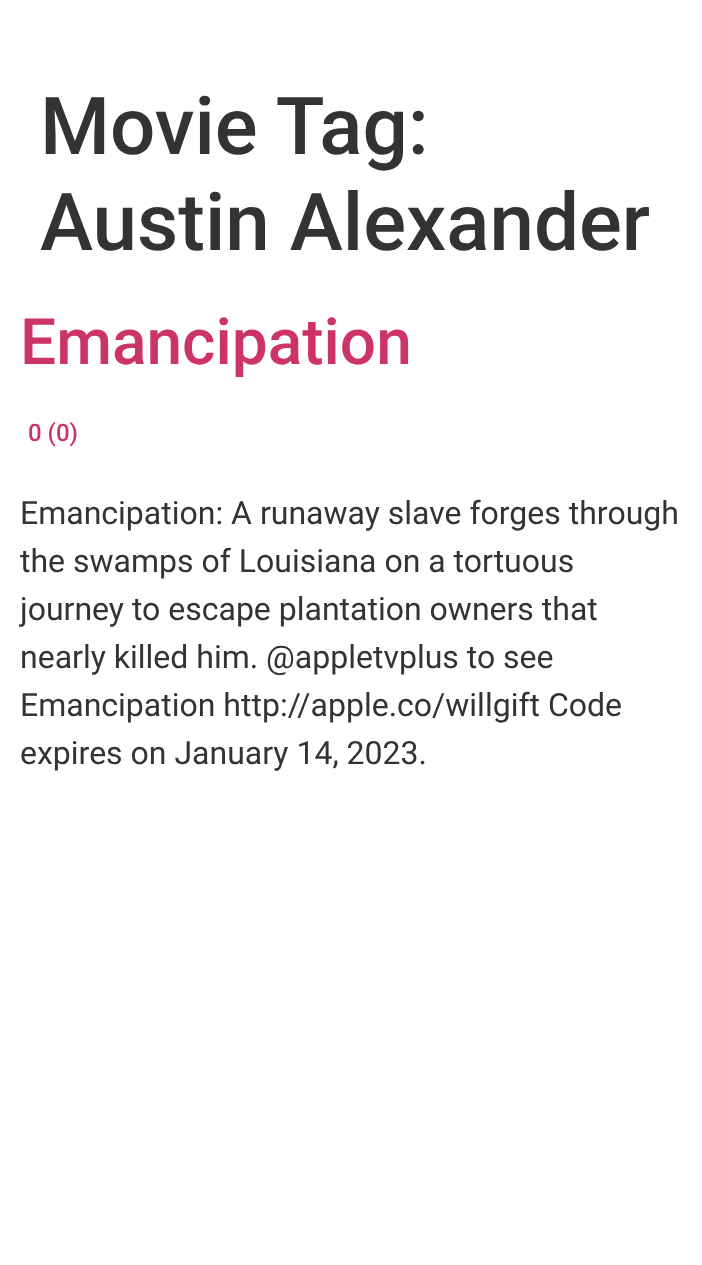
<!DOCTYPE html>
<meta charset="utf-8">
<style>body { margin: 0 } canvas { display: block }</style>
<canvas id="canvas" width="702" height="1265"></canvas>
<script type="module">
  const canvas = document.getElementById("canvas");
  const ctx = canvas.getContext("2d");
  ctx.miterLimit = 4;
  ctx.fontKerning = "normal";

  ctx.fillStyle = "#ffffff";
  ctx.fillRect(0, 0, 702, 1265);
  ctx.font = "500 80px Roboto";
  ctx.fillStyle = "#333333";
  ctx.fillText("Movie Tag:", 40, 154);
  ctx.fillText("Austin Alexander", 40, 250);
  ctx.font = "500 64px Roboto";
  ctx.fillStyle = "#cc3366";
  ctx.fillText("Emancipation", 20, 364);
  ctx.font = "500 24px Roboto";
  ctx.fillText("0 (0)", 28, 441);
  ctx.font = "32px Roboto";
  ctx.fillStyle = "#333333";
  ctx.fillText("Emancipation: A runaway slave forges through", 20, 524);
  ctx.fillText("the swamps of Louisiana on a tortuous", 20, 572);
  ctx.fillText("journey to escape plantation owners that", 20, 620);
  ctx.fillText("nearly killed him. @appletvplus to see", 20, 668);
  ctx.fillText("Emancipation http://apple.co/willgift Code", 20, 716);
  ctx.fillText("expires on January 14, 2023.", 20, 764);
</script>
